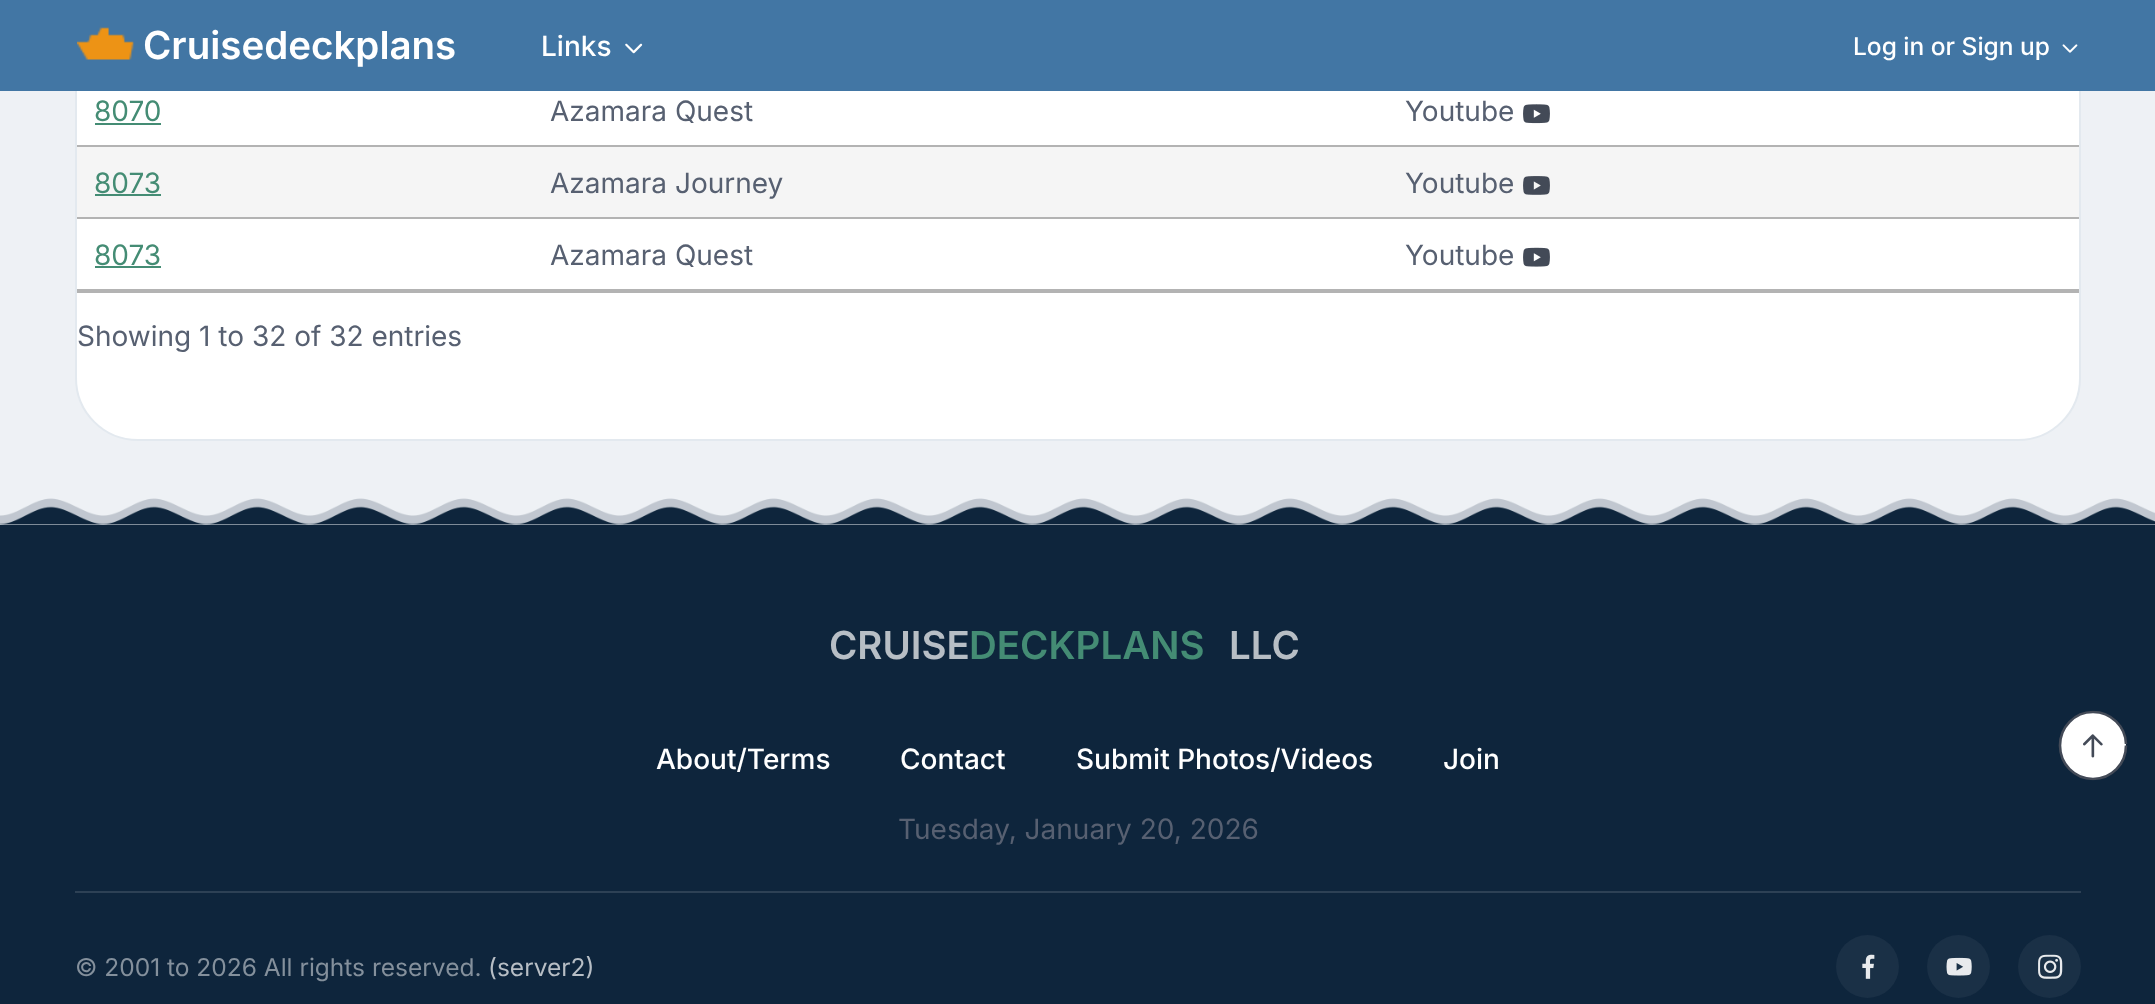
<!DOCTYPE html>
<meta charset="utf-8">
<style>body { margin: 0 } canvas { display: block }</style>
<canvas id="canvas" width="2155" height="1004"></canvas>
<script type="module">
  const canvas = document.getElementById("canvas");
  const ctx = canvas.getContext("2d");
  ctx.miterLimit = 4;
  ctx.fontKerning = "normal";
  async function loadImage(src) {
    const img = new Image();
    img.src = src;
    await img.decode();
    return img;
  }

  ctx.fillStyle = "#eef1f5";
  ctx.fillRect(0, 0, 2155, 1004);
  ctx.fillStyle = "#ffffff";
  ctx.beginPath();
  ctx.roundRect(76, -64, 2004, 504, 62);
  ctx.fill();
  ctx.strokeStyle = "#e3e9ef";
  ctx.lineWidth = 2;
  ctx.stroke();
  ctx.fillStyle = "#4276a4";
  ctx.fillRect(0, 0, 2155, 91);
  ctx.drawImage(await loadImage("img1.png"), 77, 26, 57, 34);
  ctx.font = "600 38.5px Inter";
  ctx.fillStyle = "#ffffff";
  ctx.fillText("Cruisedeckplans", 143, 59);
  ctx.font = "500 28px Inter";
  ctx.fillText("Links", 541, 56);
  ctx.drawImage(await loadImage("img2.png"), 625, 43, 18, 11);
  ctx.font = "500 24.5px Inter";
  ctx.fillText("Log in or Sign up", 1853, 55);
  ctx.drawImage(await loadImage("img3.png"), 2062, 44, 16, 9);
  ctx.fillStyle = "#b3b3b3";
  ctx.fillRect(77, 291, 2002, 2);
  ctx.fillRect(77, 145, 2002, 2);
  ctx.font = "28px Inter";
  ctx.fillStyle = "#448c74";
  ctx.fillText("8070", 94, 121);
  ctx.fillRect(95, 123, 66, 2);
  ctx.fillStyle = "#576071";
  ctx.fillText("Azamara Quest", 550, 121);
  ctx.fillText("Youtube", 1405, 121);
  ctx.drawImage(await loadImage("img4.png"), 1523, 104, 27, 20);
  ctx.fillStyle = "#f5f5f5";
  ctx.fillRect(77, 147, 2002, 70);
  ctx.fillStyle = "#b3b3b3";
  ctx.fillRect(77, 217, 2002, 2);
  ctx.fillStyle = "#448c74";
  ctx.fillText("8073", 94, 193);
  ctx.fillRect(95, 194, 66, 2);
  ctx.fillStyle = "#576071";
  ctx.fillText("Azamara Journey", 550, 193);
  ctx.fillText("Youtube", 1405, 193);
  ctx.drawImage(await loadImage("img5.png"), 1523, 176, 27, 19);
  ctx.fillStyle = "#b3b3b3";
  ctx.fillRect(77, 289, 2002, 2);
  ctx.fillStyle = "#448c74";
  ctx.fillText("8073", 94, 265);
  ctx.fillRect(95, 266, 66, 2);
  ctx.fillStyle = "#576071";
  ctx.fillText("Azamara Quest", 550, 265);
  ctx.fillText("Youtube", 1405, 265);
  ctx.drawImage(await loadImage("img6.png"), 1523, 247, 27, 20);
  ctx.fillText("Showing 1 to 32 of 32 entries", 77, 346);
  ctx.fillStyle = "#0e253c";
  ctx.fillRect(0, 525, 2155, 479);
  ctx.drawImage(await loadImage("img7.png"), 0, 498, 2155, 27);
  ctx.fillStyle = "#2d4155";
  ctx.fillRect(75, 891, 2006, 2);
  ctx.font = "600 38.5px Inter";
  ctx.fillStyle = "#b7bec5";
  ctx.fillText("CRUISE", 829, 659);
  ctx.fillStyle = "#448c74";
  ctx.fillText("DECKPLANS", 969, 659);
  ctx.fillStyle = "#b7bec5";
  ctx.fillText("LLC", 1229, 659);
  ctx.font = "500 28px Inter";
  ctx.fillStyle = "#ffffff";
  ctx.fillText("About/Terms", 656, 769);
  ctx.fillText("Contact", 900, 769);
  ctx.fillText("Submit Photos/Videos", 1076, 769);
  ctx.fillText("Join", 1443, 769);
  ctx.font = "28px Inter";
  ctx.fillStyle = "#576071";
  ctx.fillText("Tuesday, January 20, 2026", 898, 839);
  ctx.font = "24.5px Inter";
  ctx.fillStyle = "#84909c";
  ctx.fillText("© 2001 to 2026 All rights reserved.", 75, 976);
  ctx.fillStyle = "#b7bec5";
  ctx.fillText("(server2)", 488, 976);
  ctx.fillStyle = "#1a3046";
  ctx.beginPath();
  ctx.arc(1867.5, 966.5, 31.5, 0, Math.PI * 2);
  ctx.fill();
  ctx.drawImage(await loadImage("img8.png"), 1862, 954, 13, 25);
  ctx.beginPath();
  ctx.arc(1958.5, 966.5, 31.5, 0, Math.PI * 2);
  ctx.fill();
  ctx.drawImage(await loadImage("img9.png"), 1946, 957, 26, 19);
  ctx.beginPath();
  ctx.arc(2049.5, 966.5, 31.5, 0, Math.PI * 2);
  ctx.fill();
  ctx.drawImage(await loadImage("img10.png"), 2038, 954, 25, 25);
  ctx.fillStyle = "#ffffff";
  ctx.beginPath();
  ctx.roundRect(2060, 712, 66, 67, 33);
  ctx.fill();
  ctx.drawImage(await loadImage("img11.png"), 2083, 734, 20, 24);
  ctx.save();
  ctx.beginPath();
  ctx.moveTo(2128, 710.5);
  ctx.lineTo(2128, 780.5);
  ctx.lineTo(2058, 780.5);
  ctx.lineTo(2058, 710.5);
  ctx.closePath();
  ctx.clip();
  ctx.beginPath();
  ctx.moveTo(2126, 745.5);
  ctx.bezierCurveTo(2126, 764, 2111.5, 779, 2093, 779);
  ctx.bezierCurveTo(2074.5, 779, 2060, 764, 2060, 745.5);
  ctx.bezierCurveTo(2060, 727, 2074.5, 712, 2093, 712);
  ctx.bezierCurveTo(2111, 712, 2125.5, 726.5, 2126, 744);
  ctx.strokeStyle = "#434a57";
  ctx.lineWidth = 2.6;
  ctx.stroke();
  ctx.restore();
</script>
